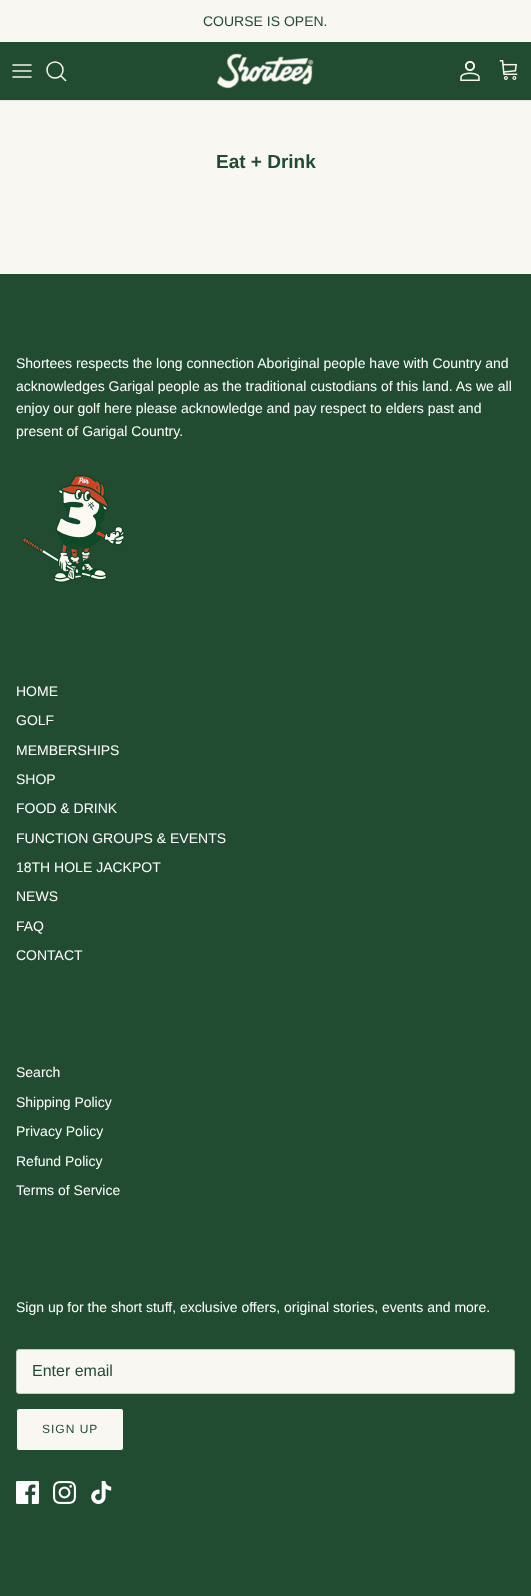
<!DOCTYPE html>
<meta charset="utf-8">
<style>body { margin: 0 } canvas { display: block }</style>
<canvas id="canvas" width="531" height="1596"></canvas>
<script type="module">
  const canvas = document.getElementById("canvas");
  const ctx = canvas.getContext("2d");
  ctx.miterLimit = 4;
  ctx.fontKerning = "normal";
  async function loadImage(src) {
    const img = new Image();
    img.src = src;
    await img.decode();
    return img;
  }

  ctx.fillStyle = "#f9f7f1";
  ctx.fillRect(0, 0, 531, 1596);
  ctx.font = "14px Arimo";
  ctx.fillStyle = "#214c31";
  ctx.fillText("COURSE IS OPEN.", 203, 26);
  ctx.fillRect(0, 42, 531, 58);
  ctx.fillStyle = "#e2e2e2";
  ctx.fillRect(0, 100, 531, 1);
  ctx.drawImage(await loadImage("img1.png"), 12, 64, 20, 14);
  ctx.beginPath();
  ctx.arc(55, 70, 8, 0, Math.PI * 2);
  ctx.strokeStyle = "#f9f7f1";
  ctx.lineWidth = 1.5;
  ctx.stroke();
  ctx.beginPath();
  ctx.moveTo(61, 76);
  ctx.lineTo(65.5, 80.5);
  ctx.lineCap = "square";
  ctx.stroke();
  ctx.drawImage(await loadImage("img2.png"), 216, 53, 98, 36);
  ctx.drawImage(await loadImage("img3.png"), 460, 61, 20, 20);
  ctx.drawImage(await loadImage("img4.png"), 499, 60, 19, 20);
  ctx.font = "bold 19px Arimo";
  ctx.fillStyle = "#214c31";
  ctx.fillText("Eat + Drink", 216, 168);
  ctx.fillRect(0, 274, 531, 1322);
  ctx.font = "14px Arimo";
  ctx.fillStyle = "#ffffff";
  ctx.fillText("Shortees respects the long connection Aboriginal people have with Country and", 16, 368);
  ctx.fillText("acknowledges Garigal people as the traditional custodians of this land. As we all", 16, 391);
  ctx.fillText("enjoy our golf here please acknowledge and pay respect to elders past and", 16, 413);
  ctx.fillText("present of Garigal Country.", 16, 436);
  ctx.drawImage(await loadImage("img5.png"), 22, 475, 103, 108);
  ctx.fillText("HOME", 16, 696);
  ctx.fillText("GOLF", 16, 725);
  ctx.fillText("MEMBERSHIPS", 16, 755);
  ctx.fillText("SHOP", 16, 784);
  ctx.fillText("FOOD & DRINK", 16, 813);
  ctx.fillText("FUNCTION GROUPS & EVENTS", 16, 843);
  ctx.fillText("18TH HOLE JACKPOT", 16, 872);
  ctx.fillText("NEWS", 16, 901);
  ctx.fillText("FAQ", 16, 931);
  ctx.fillText("CONTACT", 16, 960);
  ctx.fillText("Search", 16, 1077);
  ctx.fillText("Shipping Policy", 16, 1107);
  ctx.fillText("Privacy Policy", 16, 1136);
  ctx.fillText("Refund Policy", 16, 1166);
  ctx.fillText("Terms of Service", 16, 1195);
  ctx.fillText("Sign up for the short stuff, exclusive offers, original stories, events and more.", 16, 1312);
  ctx.fillStyle = "#f9f7f1";
  ctx.beginPath();
  ctx.roundRect(16.5, 1349.5, 498, 44, 2.5);
  ctx.fill();
  ctx.strokeStyle = "#c3ccc1";
  ctx.lineWidth = 1;
  ctx.stroke();
  ctx.font = "16px Arimo";
  ctx.fillStyle = "#214c31";
  ctx.fillText("Enter email", 32, 1376);
  ctx.fillStyle = "#f9f7f1";
  ctx.beginPath();
  ctx.roundRect(16.5, 1408.5, 107, 42, 2.5);
  ctx.fill();
  ctx.strokeStyle = "#214c31";
  ctx.stroke();
  ctx.letterSpacing = "1px";
  ctx.font = "12px Arimo";
  ctx.fillStyle = "#214c31";
  ctx.fillText("SIGN UP", 42, 1433);
  ctx.drawImage(await loadImage("img6.png"), 16, 1481, 23, 23);
  ctx.drawImage(await loadImage("img7.png"), 53, 1481, 23, 23);
  ctx.drawImage(await loadImage("img8.png"), 91, 1481, 21, 23);
</script>
